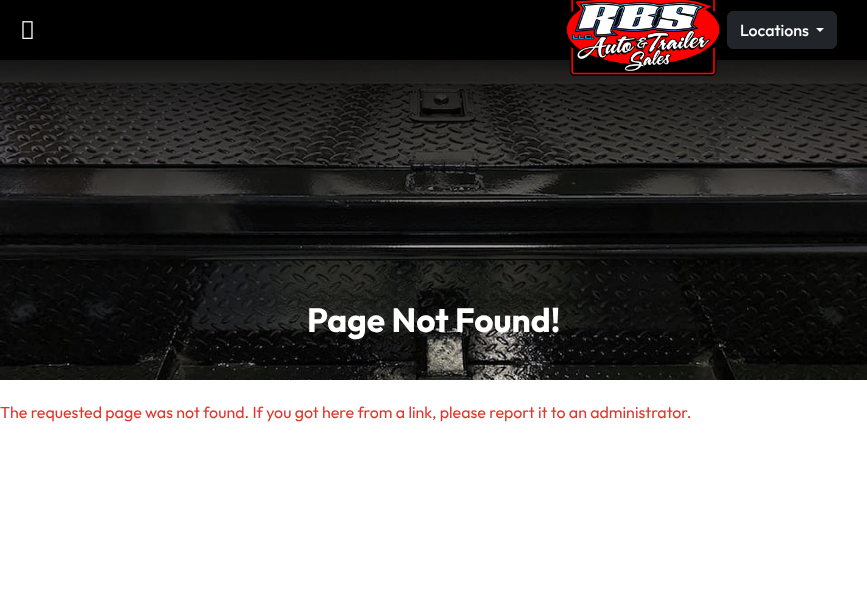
<!DOCTYPE html>
<meta charset="utf-8">
<style>body { margin: 0 } canvas { display: block }</style>
<canvas id="canvas" width="867" height="600"></canvas>
<script type="module">
  const canvas = document.getElementById("canvas");
  const ctx = canvas.getContext("2d");
  ctx.miterLimit = 4;
  ctx.fontKerning = "normal";
  async function loadImage(src) {
    const img = new Image();
    img.src = src;
    await img.decode();
    return img;
  }

  ctx.fillStyle = "#000000";
  ctx.fillRect(0, 0, 867, 600);
  ctx.drawImage(await loadImage("img1.png"), 22, 21, 11, 18);
  ctx.drawImage(await loadImage("img3.png"), 0, 60, 867, 320);
  ctx.drawImage(await loadImage("img2.png"), 566, 0, 154, 76);
  ctx.fillStyle = "#212529";
  ctx.beginPath();
  ctx.roundRect(727.5, 11.5, 109, 37, 5.5);
  ctx.fill();
  ctx.strokeStyle = "#212529";
  ctx.stroke();
  ctx.font = "500 16px Outfit";
  ctx.fillStyle = "#ffffff";
  ctx.fillText("Locations", 740, 36);
  ctx.beginPath();
  ctx.moveTo(816, 28);
  ctx.lineTo(824, 28);
  ctx.lineTo(820, 32);
  ctx.closePath();
  ctx.fill();
  ctx.fillRect(0, 380, 867, 220);
  ctx.font = "bold 33.5px Outfit";
  ctx.fillText("Page Not Found!", 307, 332);
  ctx.font = "16px Outfit";
  ctx.fillStyle = "#e3342f";
  ctx.fillText("The requested page was not found. If you got here from a link, please report it to an administrator.", 0, 418);
</script>
